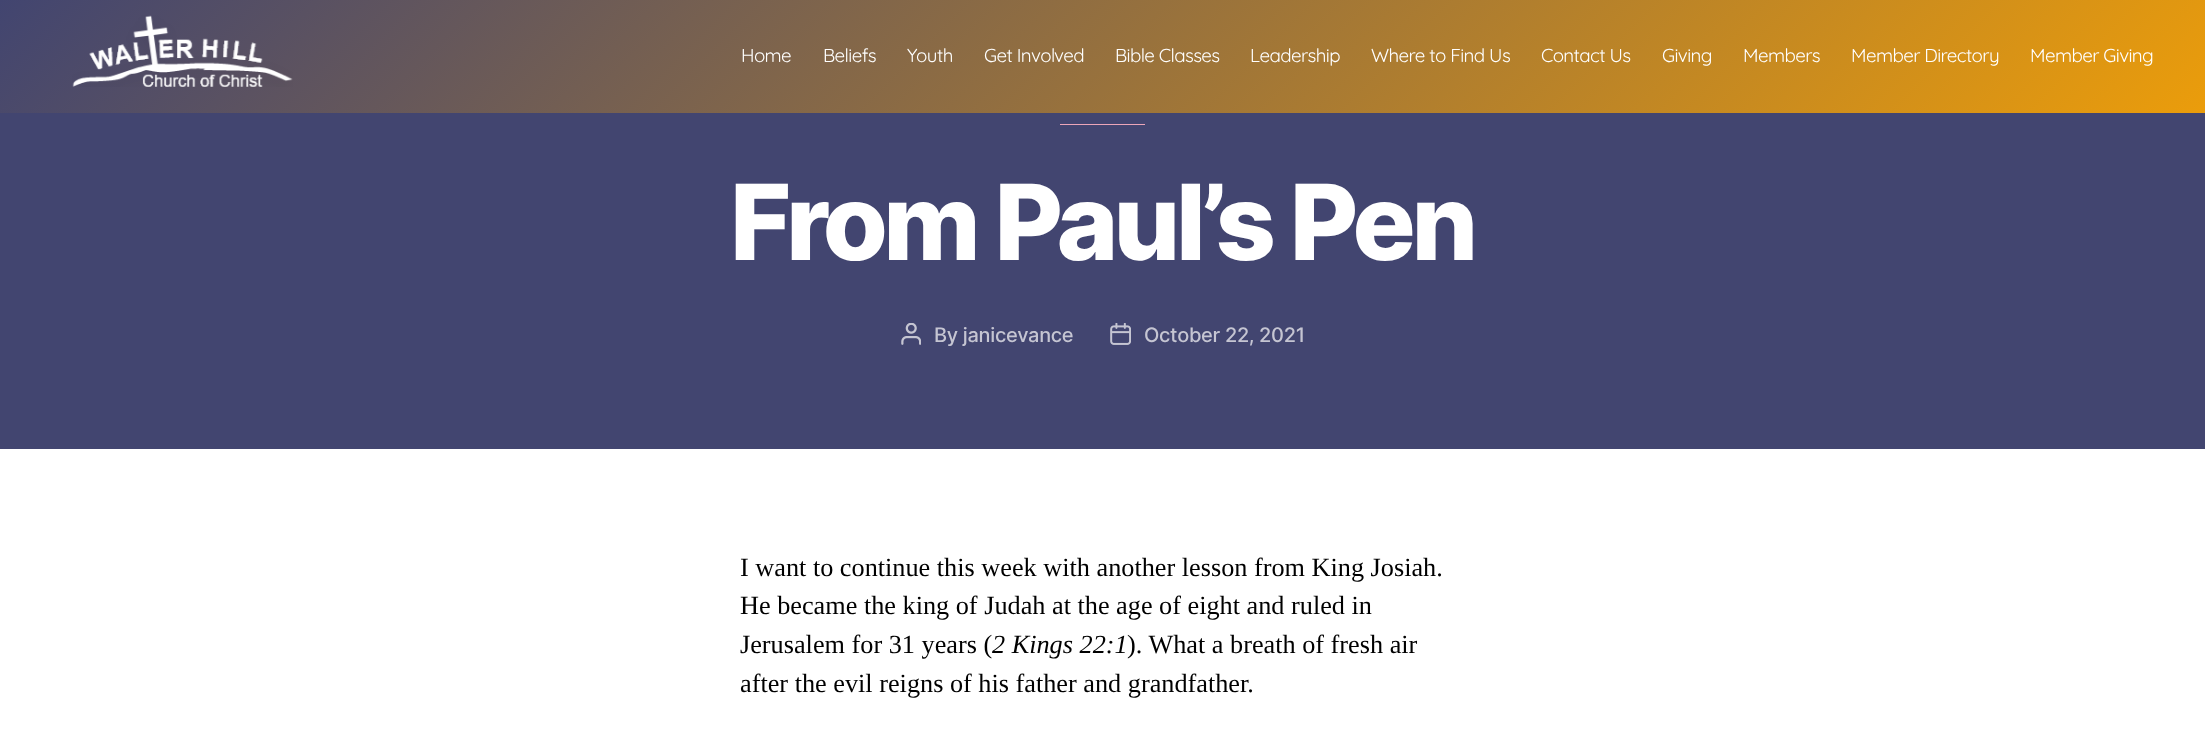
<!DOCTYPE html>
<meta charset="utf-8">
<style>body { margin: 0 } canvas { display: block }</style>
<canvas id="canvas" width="2205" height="747"></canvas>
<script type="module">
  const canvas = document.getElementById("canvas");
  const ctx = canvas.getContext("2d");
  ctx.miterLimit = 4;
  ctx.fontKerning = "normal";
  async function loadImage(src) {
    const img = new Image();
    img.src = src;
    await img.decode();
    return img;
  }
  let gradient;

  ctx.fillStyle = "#ffffff";
  ctx.fillRect(0, 0, 2205, 747);
  ctx.fillStyle = "#424570";
  ctx.fillRect(0, 0, 2205, 449);
  gradient = ctx.createLinearGradient(523, -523, 1682, 636);
  gradient.addColorStop(0, "rgba(66, 69, 112, 0.9)");
  gradient.addColorStop(1, "rgba(253, 166, 0, 0.9)");
  ctx.fillStyle = gradient;
  ctx.fillRect(0, 0, 2205, 113);
  ctx.drawImage(await loadImage("img1.png"), 72, 15, 221, 72);
  ctx.letterSpacing = "-0.6px";
  ctx.font = "18.75px Quicksand";
  ctx.fillStyle = "#ffffff";
  ctx.fillText("Home", 741, 62);
  ctx.fillText("Beliefs", 823, 62);
  ctx.fillText("Youth", 907, 62);
  ctx.fillText("Get Involved", 984, 62);
  ctx.fillText("Bible Classes", 1115, 62);
  ctx.fillText("Leadership", 1250, 62);
  ctx.fillText("Where to Find Us", 1371, 62);
  ctx.fillText("Contact Us", 1541, 62);
  ctx.fillText("Giving", 1662, 62);
  ctx.fillText("Members", 1743, 62);
  ctx.fillText("Member Directory", 1851, 62);
  ctx.fillText("Member Giving", 2030, 62);
  ctx.fillStyle = "#eca6b9";
  ctx.fillRect(1060, 124, 85, 1);
  ctx.letterSpacing = "-4.4px";
  ctx.font = "800 105px Inter";
  ctx.fillStyle = "#ffffff";
  ctx.fillText("From Paul’s Pen", 730, 260);
  ctx.drawImage(await loadImage("img2.png"), 901, 323, 20, 22);
  ctx.letterSpacing = "-0.3px";
  ctx.font = "500 20px Inter";
  ctx.fillStyle = "#c5c5d2";
  ctx.fillText("By janicevance", 934, 342);
  ctx.drawImage(await loadImage("img3.png"), 1110, 323, 21, 22);
  ctx.fillText("October 22, 2021", 1144, 342);
  ctx.letterSpacing = "0px";
  ctx.font = "26.25px Liberation Serif";
  ctx.fillStyle = "#000000";
  ctx.fillText("I want to continue this week with another lesson from King Josiah.", 740, 576);
  ctx.fillText("He became the king of Judah at the age of eight and ruled in", 740, 614);
  ctx.fillText("Jerusalem for 31 years (", 740, 653);
  ctx.font = "italic 26.25px Liberation Serif";
  ctx.fillText("2 Kings 22:1", 992, 653);
  ctx.font = "26.25px Liberation Serif";
  ctx.fillText("). What a breath of fresh air", 1127, 653);
  ctx.fillText("after the evil reigns of his father and grandfather.", 740, 692);
</script>
